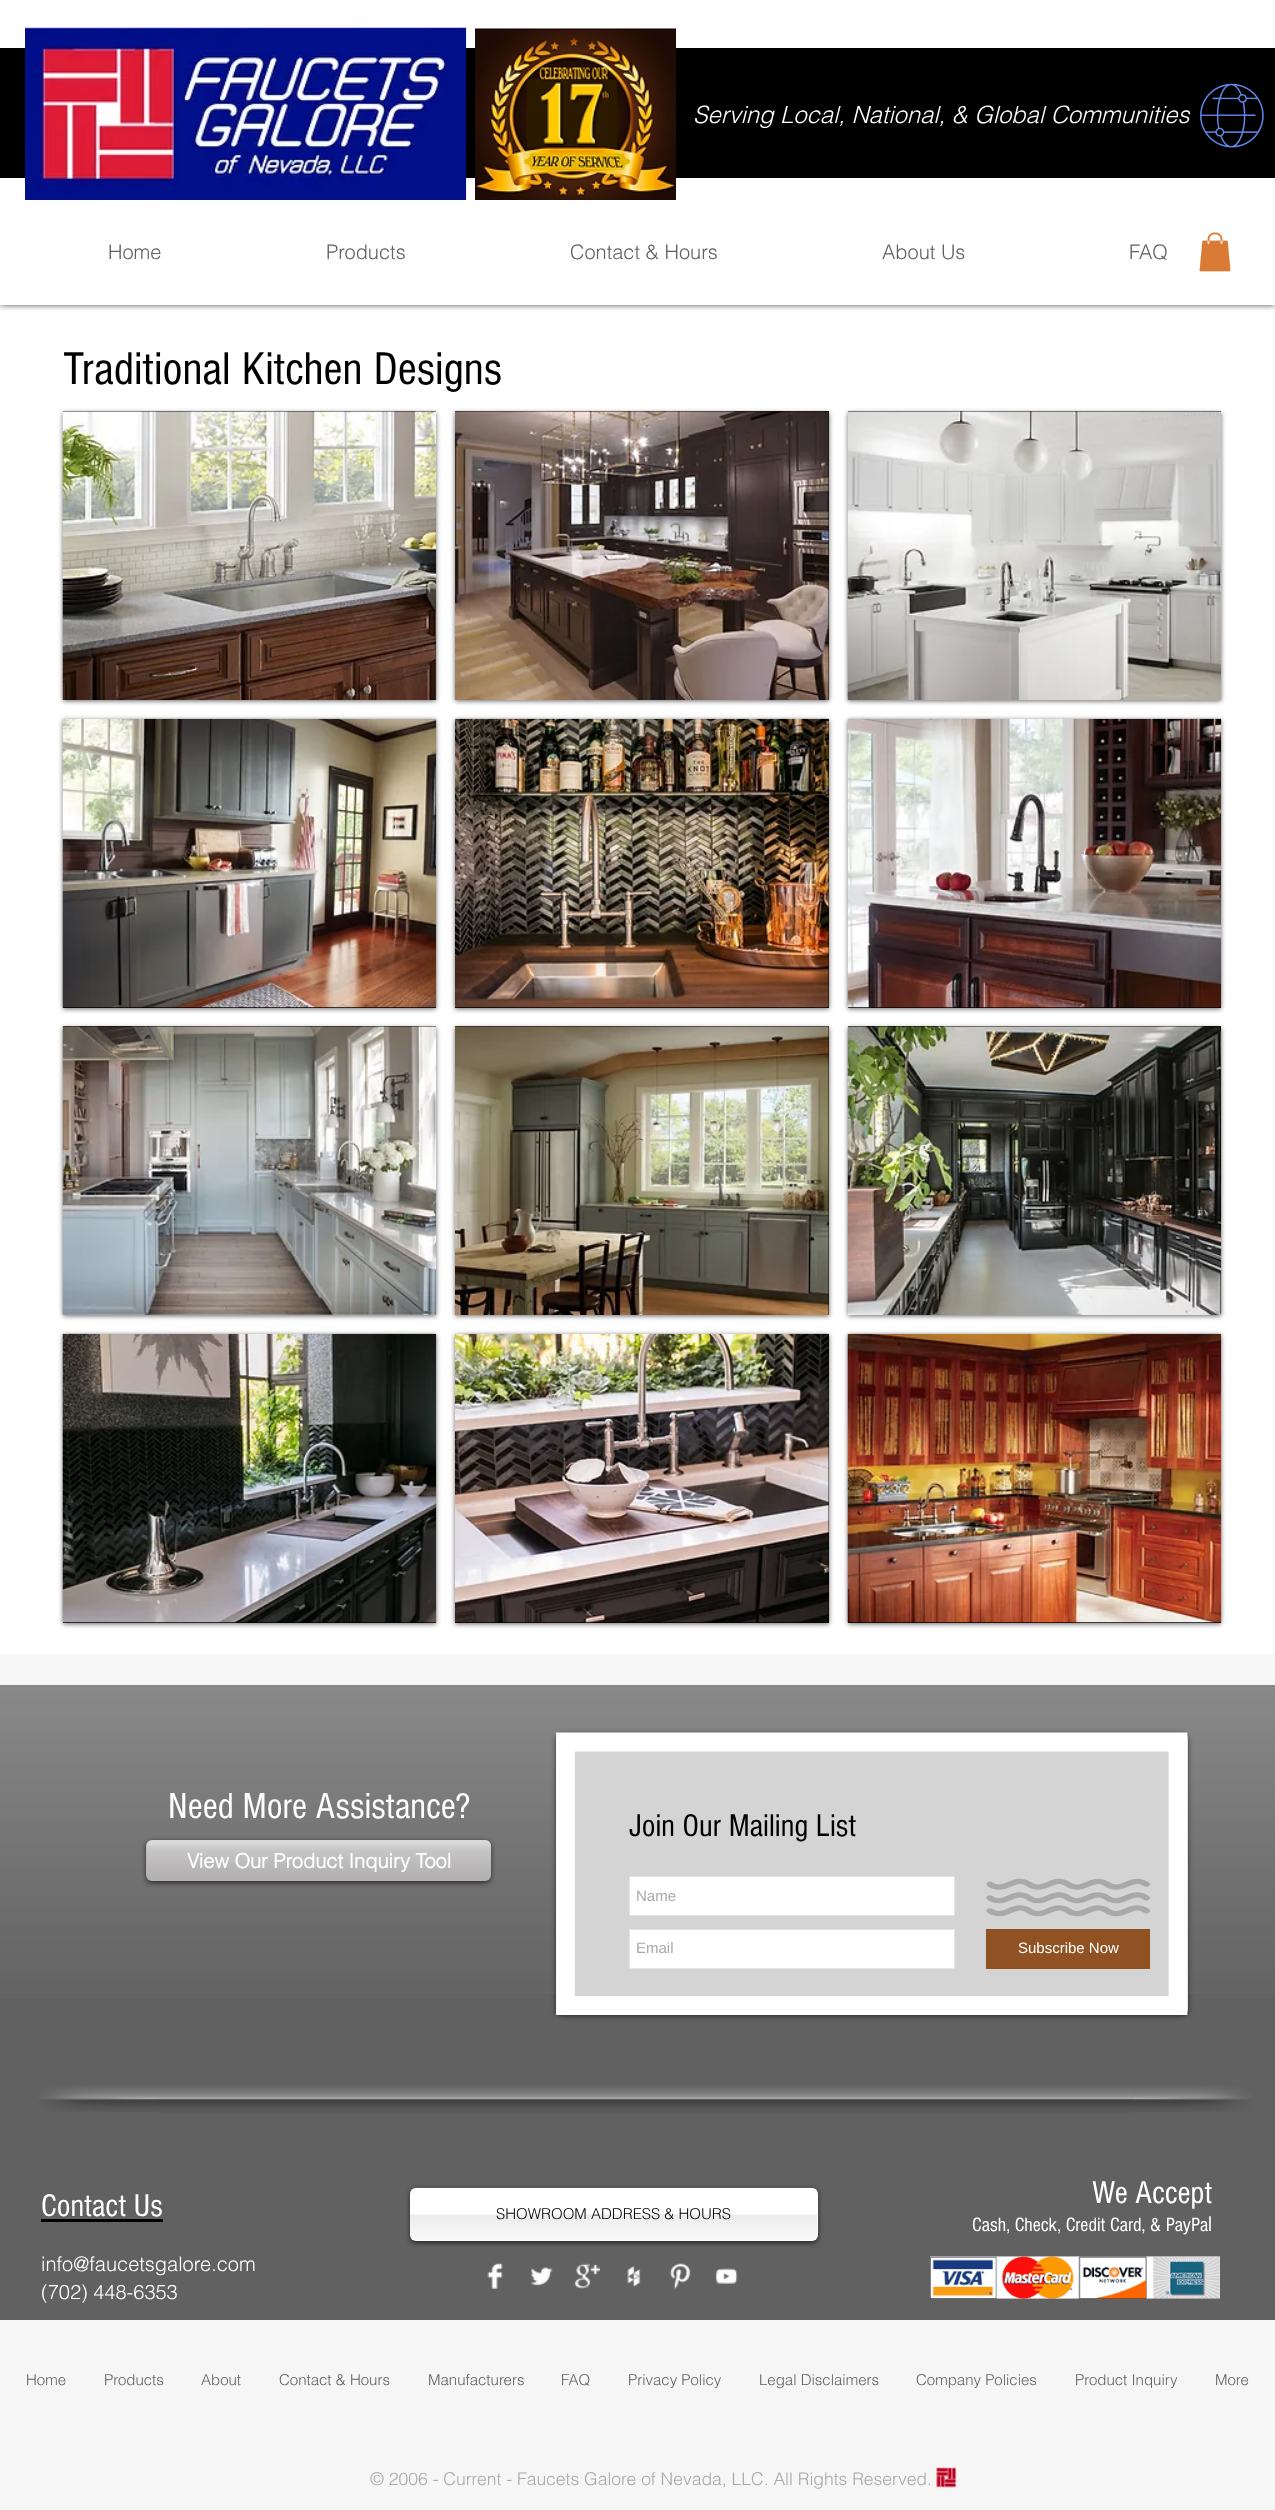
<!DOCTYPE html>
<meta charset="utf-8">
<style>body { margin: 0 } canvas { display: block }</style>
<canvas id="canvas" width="1275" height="2510"></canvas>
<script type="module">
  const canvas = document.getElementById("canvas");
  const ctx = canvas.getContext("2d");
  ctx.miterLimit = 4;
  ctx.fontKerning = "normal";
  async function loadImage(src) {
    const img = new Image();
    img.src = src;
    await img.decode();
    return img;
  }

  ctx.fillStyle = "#ffffff";
  ctx.fillRect(0, 0, 1275, 2510);
  ctx.save();
  ctx.beginPath();
  ctx.rect(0, 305, 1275, 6);
  ctx.clip();
  ctx.fillStyle = "rgba(0, 0, 0, 0.7)";
  ctx.filter = "blur(3px)";
  ctx.beginPath();
  ctx.rect(0, 0, 1275, 305);
  ctx.fill();
  ctx.filter = "none";
  ctx.restore();
  ctx.fillStyle = "#000000";
  ctx.fillRect(0, 48, 1275, 130);
  ctx.drawImage(await loadImage("img1.png"), 25, 27, 442, 173);
  ctx.drawImage(await loadImage("img2.png"), 475, 28, 201, 172);
  ctx.font = "italic 300 23.75px helvetica";
  ctx.fillStyle = "#ffffff";
  ctx.fillText("Serving Local, National, & Global Communities", 693, 123);
  ctx.drawImage(await loadImage("img3.png"), 1200, 83, 64, 65);
  ctx.font = "300 20px helvetica";
  ctx.fillStyle = "#616161";
  ctx.fillText("Home", 108, 259);
  ctx.fillText("Products", 326, 259);
  ctx.fillText("Contact & Hours", 570, 259);
  ctx.fillText("About Us", 882, 259);
  ctx.fillText("FAQ", 1129, 259);
  ctx.drawImage(await loadImage("img4.png"), 1199, 232, 32, 40);
  ctx.font = "47.5px 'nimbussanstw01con'";
  ctx.fillStyle = "#000000";
  ctx.fillText("Traditional Kitchen Designs", 63, 384);
  ctx.fillStyle = "rgba(0, 0, 0, 0.6)";
  ctx.filter = "blur(2.5px)";
  ctx.beginPath();
  ctx.rect(63, 413, 373, 288);
  ctx.fill();
  ctx.filter = "none";
  ctx.fillStyle = "#000000";
  ctx.fillRect(63, 411, 373, 1);
  ctx.drawImage(await loadImage("img5.png"), 62, 411, 375, 289);
  ctx.fillStyle = "rgba(0, 0, 0, 0.6)";
  ctx.filter = "blur(2.5px)";
  ctx.beginPath();
  ctx.rect(455, 413, 374, 288);
  ctx.fill();
  ctx.filter = "none";
  ctx.fillStyle = "#000000";
  ctx.fillRect(455, 411, 374, 289);
  ctx.drawImage(await loadImage("img6.png"), 455, 411, 374, 289);
  ctx.fillStyle = "rgba(0, 0, 0, 0.6)";
  ctx.filter = "blur(2.5px)";
  ctx.beginPath();
  ctx.rect(848, 413, 373, 288);
  ctx.fill();
  ctx.filter = "none";
  ctx.fillStyle = "#000000";
  ctx.fillRect(848, 411, 373, 1);
  ctx.drawImage(await loadImage("img7.png"), 847, 411, 375, 289);
  ctx.fillStyle = "rgba(0, 0, 0, 0.6)";
  ctx.filter = "blur(2.5px)";
  ctx.beginPath();
  ctx.rect(63, 720, 373, 289);
  ctx.fill();
  ctx.filter = "none";
  ctx.fillStyle = "#000000";
  ctx.fillRect(63, 1007, 373, 1);
  ctx.drawImage(await loadImage("img8.png"), 62, 718, 375, 290);
  ctx.fillStyle = "rgba(0, 0, 0, 0.6)";
  ctx.filter = "blur(2.5px)";
  ctx.beginPath();
  ctx.rect(455, 720, 374, 289);
  ctx.fill();
  ctx.filter = "none";
  ctx.fillStyle = "#000000";
  ctx.fillRect(455, 719, 374, 289);
  ctx.drawImage(await loadImage("img9.png"), 455, 718, 374, 290);
  ctx.fillStyle = "rgba(0, 0, 0, 0.6)";
  ctx.filter = "blur(2.5px)";
  ctx.beginPath();
  ctx.rect(848, 720, 373, 289);
  ctx.fill();
  ctx.filter = "none";
  ctx.fillStyle = "#000000";
  ctx.fillRect(848, 1007, 373, 1);
  ctx.drawImage(await loadImage("img10.png"), 847, 718, 375, 290);
  ctx.fillStyle = "rgba(0, 0, 0, 0.6)";
  ctx.filter = "blur(2.5px)";
  ctx.beginPath();
  ctx.rect(63, 1028, 373, 288);
  ctx.fill();
  ctx.filter = "none";
  ctx.fillStyle = "#000000";
  ctx.fillRect(63, 1026, 373, 1);
  ctx.drawImage(await loadImage("img11.png"), 62, 1026, 375, 289);
  ctx.fillStyle = "rgba(0, 0, 0, 0.6)";
  ctx.filter = "blur(2.5px)";
  ctx.beginPath();
  ctx.rect(455, 1028, 374, 288);
  ctx.fill();
  ctx.filter = "none";
  ctx.fillStyle = "#000000";
  ctx.fillRect(455, 1026, 374, 289);
  ctx.drawImage(await loadImage("img12.png"), 455, 1026, 374, 289);
  ctx.fillStyle = "rgba(0, 0, 0, 0.6)";
  ctx.filter = "blur(2.5px)";
  ctx.beginPath();
  ctx.rect(848, 1028, 373, 288);
  ctx.fill();
  ctx.filter = "none";
  ctx.fillStyle = "#000000";
  ctx.fillRect(848, 1026, 373, 1);
  ctx.drawImage(await loadImage("img13.png"), 847, 1026, 375, 289);
  ctx.fillStyle = "rgba(0, 0, 0, 0.6)";
  ctx.filter = "blur(2.5px)";
  ctx.beginPath();
  ctx.rect(63, 1335, 373, 289);
  ctx.fill();
  ctx.filter = "none";
  ctx.fillStyle = "#000000";
  ctx.fillRect(63, 1622, 373, 1);
  ctx.drawImage(await loadImage("img14.png"), 62, 1333, 375, 290);
  ctx.fillStyle = "rgba(0, 0, 0, 0.6)";
  ctx.filter = "blur(2.5px)";
  ctx.beginPath();
  ctx.rect(455, 1335, 374, 289);
  ctx.fill();
  ctx.filter = "none";
  ctx.fillStyle = "#000000";
  ctx.fillRect(455, 1334, 374, 289);
  ctx.drawImage(await loadImage("img15.png"), 455, 1333, 374, 290);
  ctx.fillStyle = "rgba(0, 0, 0, 0.6)";
  ctx.filter = "blur(2.5px)";
  ctx.beginPath();
  ctx.rect(848, 1335, 373, 289);
  ctx.fill();
  ctx.filter = "none";
  ctx.fillStyle = "#000000";
  ctx.fillRect(848, 1622, 373, 1);
  ctx.drawImage(await loadImage("img16.png"), 847, 1333, 375, 290);
  ctx.fillStyle = "#f6f6f6";
  ctx.fillRect(0, 1654, 1275, 856);
  ctx.fillStyle = "#616161";
  ctx.fillRect(0, 1685, 1275, 635);
  ctx.drawImage(await loadImage("img17.png"), 0, 1685, 1275, 309);
  ctx.font = "37.5px 'nimbussanstw01con'";
  ctx.fillStyle = "#ffffff";
  ctx.fillText("Need More Assistance?", 168, 1818);
  ctx.fillStyle = "rgba(0, 0, 0, 0.6)";
  ctx.filter = "blur(2.5px)";
  ctx.beginPath();
  ctx.roundRect(146, 1841, 345, 42, 6);
  ctx.fill();
  ctx.filter = "none";
  ctx.fillStyle = "#aaa8a8";
  ctx.beginPath();
  ctx.roundRect(146, 1840, 345, 41, 6);
  ctx.fill();
  ctx.drawImage(await loadImage("img18.png"), 146, 1840, 346, 41);
  ctx.font = "bold 20px helvetica";
  ctx.fillStyle = "#ffffff";
  ctx.fillText("View Our Product Inquiry Tool", 187, 1868);
  ctx.fillStyle = "rgba(0, 0, 0, 0.6)";
  ctx.filter = "blur(2.5px)";
  ctx.beginPath();
  ctx.roundRect(556, 1734, 632, 282, 6);
  ctx.fill();
  ctx.filter = "none";
  ctx.fillStyle = "#d4d4d4";
  ctx.beginPath();
  ctx.roundRect(556, 1733, 632, 282, 6);
  ctx.fill();
  ctx.beginPath();
  ctx.moveTo(565.5, 1742);
  ctx.lineTo(1178, 1742);
  ctx.lineTo(1178, 2005.5);
  ctx.lineTo(565.5, 2005.5);
  ctx.closePath();
  ctx.strokeStyle = "#ffffff";
  ctx.lineWidth = 18.8;
  ctx.stroke();
  ctx.font = "32.5px 'nimbussanstw01con'";
  ctx.fillStyle = "#000000";
  ctx.fillText("Join Our Mailing List", 629, 1836);
  ctx.fillStyle = "#ffffff";
  ctx.beginPath();
  ctx.rect(629.5, 1876.5, 325, 39);
  ctx.fill();
  ctx.strokeStyle = "#e4e4e4";
  ctx.lineWidth = 1;
  ctx.stroke();
  ctx.font = "15px Liberation Sans";
  ctx.fillStyle = "#aaa8a8";
  ctx.fillText("Name", 636, 1901);
  ctx.drawImage(await loadImage("img19.png"), 986, 1878, 164, 39);
  ctx.fillStyle = "#ffffff";
  ctx.beginPath();
  ctx.rect(629.5, 1929.5, 325, 39);
  ctx.fill();
  ctx.stroke();
  ctx.fillStyle = "#aaa8a8";
  ctx.fillText("Email", 636, 1953);
  ctx.fillStyle = "#915223";
  ctx.fillRect(986, 1929, 164, 40);
  ctx.fillStyle = "#ffffff";
  ctx.fillText("Subscribe Now", 1018, 1953);
  ctx.drawImage(await loadImage("img21.png"), 158, 2085, 975, 28);
  ctx.drawImage(await loadImage("img20.png"), 39, 2085, 120, 27);
  ctx.drawImage(await loadImage("img22.png"), 1132, 2085, 120, 27);
  ctx.font = "32.5px 'nimbussanstw01con'";
  ctx.fillText("Contact Us", 41, 2216);
  ctx.fillStyle = "#000000";
  ctx.fillRect(41, 2219, 122, 3);
  ctx.font = "300 20px helvetica";
  ctx.fillStyle = "#ffffff";
  ctx.fillText("info@faucetsgalore.com", 41, 2271);
  ctx.fillText("(702) 448-6353", 41, 2299);
  ctx.fillStyle = "rgba(0, 0, 0, 0.6)";
  ctx.filter = "blur(2.5px)";
  ctx.beginPath();
  ctx.roundRect(410, 2189, 408, 54, 6);
  ctx.fill();
  ctx.filter = "none";
  ctx.fillStyle = "#ffffff";
  ctx.beginPath();
  ctx.roundRect(410, 2188, 408, 53, 6);
  ctx.fill();
  ctx.drawImage(await loadImage("img23.png"), 410, 2187, 407, 53);
  ctx.font = "300 15px helvetica";
  ctx.fillStyle = "#000000";
  ctx.fillText("SHOWROOM ADDRESS & HOURS", 496, 2219);
  ctx.font = "32.5px 'nimbussanstw01con'";
  ctx.fillStyle = "#ffffff";
  ctx.fillText("We Accept", 1092, 2203);
  ctx.font = "20px 'nimbussanstw01con'";
  ctx.fillText("Cash, Check, Credit Card, & PayPa", 972, 2231);
  ctx.font = "22px 'nimbussanstw01con'";
  ctx.fillText("l", 1208, 2231);
  ctx.drawImage(await loadImage("img24.png"), 487, 2263, 16, 26);
  ctx.drawImage(await loadImage("img25.png"), 530, 2267, 23, 19);
  ctx.drawImage(await loadImage("img26.png"), 575, 2263, 25, 26);
  ctx.drawImage(await loadImage("img27.png"), 627, 2266, 14, 21);
  ctx.drawImage(await loadImage("img28.png"), 670, 2263, 21, 26);
  ctx.drawImage(await loadImage("img29.png"), 715, 2268, 23, 16);
  ctx.drawImage(await loadImage("img30.png"), 930, 2256, 290, 43);
  ctx.font = "300 15px helvetica";
  ctx.fillStyle = "#616161";
  ctx.fillText("Home", 26, 2385);
  ctx.fillText("Products", 104, 2385);
  ctx.fillText("About", 201, 2385);
  ctx.fillText("Contact & Hours", 279, 2385);
  ctx.fillText("Manufacturers", 428, 2385);
  ctx.fillText("FAQ", 561, 2385);
  ctx.fillText("Privacy Policy", 628, 2385);
  ctx.fillText("Legal Disclaimers", 759, 2385);
  ctx.fillText("Company Policies", 916, 2385);
  ctx.fillText("Product Inquiry", 1075, 2385);
  ctx.fillText("More", 1215, 2385);
  ctx.font = "300 17.5px helvetica";
  ctx.fillStyle = "#aaa8a8";
  ctx.fillText("© 2006 - Current - Faucets Galore of Nevada, LLC. All Rights Reserved.", 370, 2485);
  ctx.drawImage(await loadImage("img31.png"), 936, 2467, 21, 21);
</script>
